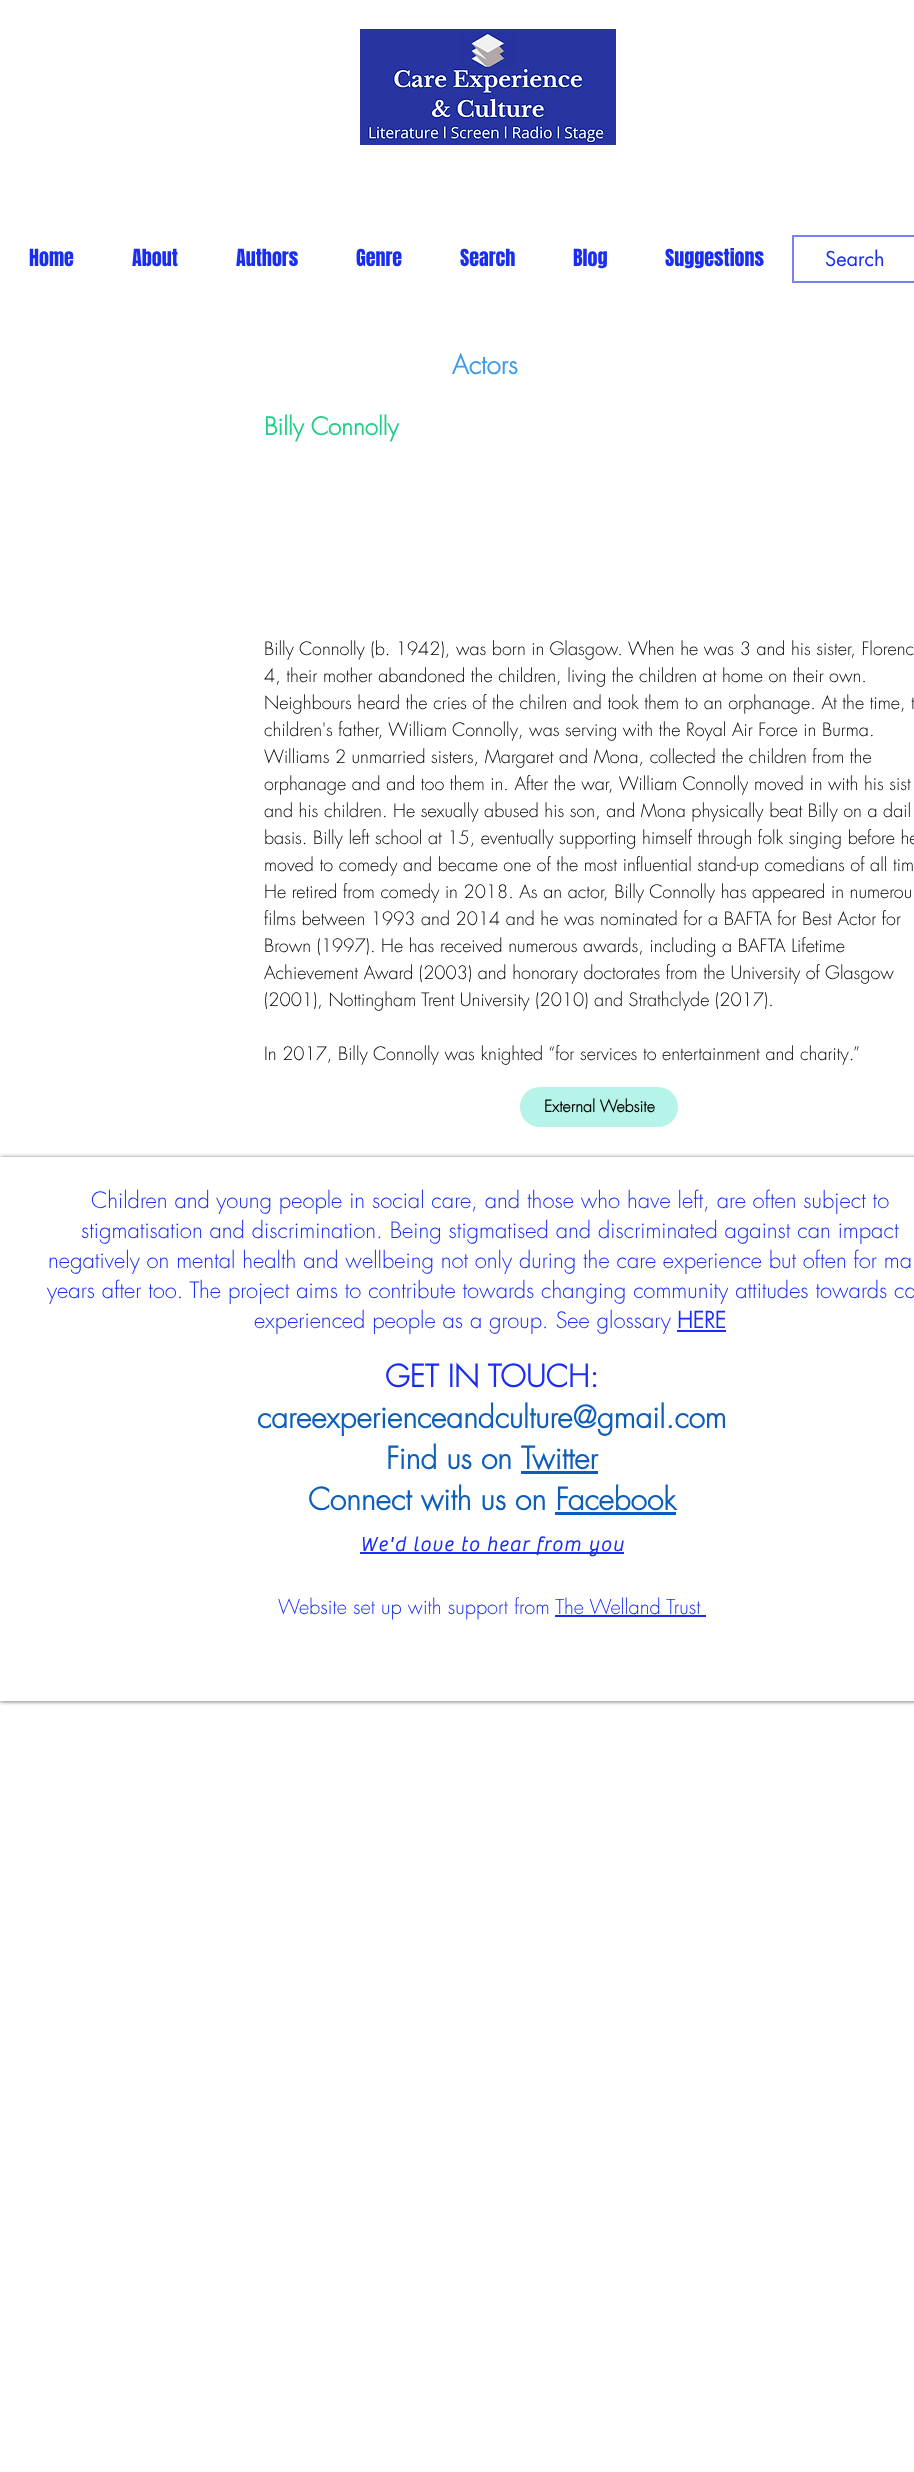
<!DOCTYPE html>
<meta charset="utf-8">
<style>body { margin: 0 } canvas { display: block }</style>
<canvas id="canvas" width="914" height="2472"></canvas>
<script type="module">
  const canvas = document.getElementById("canvas");
  const ctx = canvas.getContext("2d");
  ctx.miterLimit = 4;
  ctx.fontKerning = "normal";
  async function loadImage(src) {
    const img = new Image();
    img.src = src;
    await img.decode();
    return img;
  }

  ctx.fillStyle = "#ffffff";
  ctx.fillRect(0, 0, 914, 2472);
  ctx.drawImage(await loadImage("img1.png"), 360, 29, 256, 116);
  ctx.font = "20px Anton";
  ctx.fillStyle = "#1a2df3";
  ctx.fillText("Home", 29, 266);
  ctx.fillText("About", 132, 266);
  ctx.fillText("Authors", 236, 266);
  ctx.fillText("Genre", 356, 266);
  ctx.fillText("Search", 460, 266);
  ctx.fillText("Blog", 573, 266);
  ctx.fillText("Suggestions", 665, 266);
  ctx.strokeStyle = "#7681f8";
  ctx.lineWidth = 2;
  ctx.strokeRect(793, 236, 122, 46);
  ctx.font = "20px futura";
  ctx.fillText("Search", 825, 266);
  ctx.font = "bold 26px futura";
  ctx.fillStyle = "#3d9be9";
  ctx.fillText("Actors", 452, 374);
  ctx.font = "bold 24px futura";
  ctx.fillStyle = "#20ce88";
  ctx.fillText("Billy Connolly", 264, 435);
  ctx.font = "300 18px futura";
  ctx.fillStyle = "#000000";
  ctx.fillText("Billy Connolly (b. 1942), was born in Glasgow. When he was 3 and his sister, Florenc", 264, 655);
  ctx.fillText("4, their mother abandoned the children, living the children at home on their own.", 264, 682);
  ctx.fillText("Neighbours heard the cries of the chilren and took them to an orphanage. At the time, t", 264, 709);
  ctx.fillText("children's father, William Connolly, was serving with the Royal Air Force in Burma.", 264, 736);
  ctx.fillText("Williams 2 unmarried sisters, Margaret and Mona, collected the children from the", 264, 763);
  ctx.fillText("orphanage and and too them in. After the war, William Connolly moved in with his sist", 264, 790);
  ctx.fillText("and his children. He sexually abused his son, and Mona physically beat Billy on a dail", 264, 817);
  ctx.fillText("basis. Billy left school at 15, eventually supporting himself through folk singing before he", 264, 844);
  ctx.fillText("moved to comedy and became one of the most influential stand-up comedians of all tim", 264, 871);
  ctx.fillText("He retired from comedy in 2018. As an actor, Billy Connolly has appeared in numerou", 264, 898);
  ctx.fillText("films between 1993 and 2014 and he was nominated for a BAFTA for Best Actor for", 264, 925);
  ctx.fillText("Brown (1997). He has received numerous awards, including a BAFTA Lifetime", 264, 952);
  ctx.fillText("Achievement Award (2003) and honorary doctorates from the University of Glasgow", 264, 979);
  ctx.fillText("(2001), Nottingham Trent University (2010) and Strathclyde (2017).", 264, 1006);
  ctx.fillText("In 2017, Billy Connolly was knighted “for services to entertainment and charity.”", 264, 1060);
  ctx.fillStyle = "#b6f3e8";
  ctx.beginPath();
  ctx.roundRect(520, 1087, 158, 40, 20);
  ctx.fill();
  ctx.font = "bold 16px futura";
  ctx.fillStyle = "#000000";
  ctx.fillText("External Website", 544, 1112);
  ctx.save();
  ctx.beginPath();
  ctx.moveTo(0, 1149);
  ctx.lineTo(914, 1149);
  ctx.lineTo(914, 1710);
  ctx.lineTo(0, 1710);
  ctx.closePath();
  ctx.moveTo(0, 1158);
  ctx.lineTo(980, 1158);
  ctx.lineTo(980, 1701);
  ctx.lineTo(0, 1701);
  ctx.closePath();
  ctx.clip("evenodd");
  ctx.fillStyle = "rgba(0, 0, 0, 0.7)";
  ctx.filter = "blur(2.5px)";
  ctx.beginPath();
  ctx.rect(0, 1158, 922, 543);
  ctx.fill();
  ctx.filter = "none";
  ctx.restore();
  ctx.fillStyle = "#ffffff";
  ctx.fillRect(0, 1157, 914, 1);
  ctx.font = "300 22px futura";
  ctx.fillStyle = "#1a2df3";
  ctx.fillText("Children and young people in social care, and those who have left, are often subject to", 91, 1208);
  ctx.fillText("stigmatisation and discrimination. Being stigmatised and discriminated against can impact", 81, 1238);
  ctx.fillText("negatively on mental health and wellbeing not only during the care experience but often for ma", 48, 1268);
  ctx.fillText("years after too. The project aims to contribute towards changing community attitudes towards ca", 47, 1298);
  ctx.fillText("experienced people as a group. See glossary", 254, 1328);
  ctx.font = "bold 22px futura";
  ctx.fillText("HERE", 677, 1328);
  ctx.fillRect(677, 1330, 49, 2);
  ctx.font = "bold 30px futura";
  ctx.fillText("GET IN TOUCH:", 385, 1387);
  ctx.fillStyle = "#0d5eba";
  ctx.fillText("careexperienceandculture@gmail.com", 257, 1428);
  ctx.fillText("Find us on", 386, 1469);
  ctx.fillText("Twitter", 521, 1469);
  ctx.fillRect(521, 1471, 77, 3);
  ctx.fillText("Connect with us on Facebook", 308, 1510);
  ctx.fillRect(555, 1512, 121, 3);
  ctx.fillStyle = "#1a2df3";
  ctx.fillRect(360, 1552, 264, 2);
  ctx.letterSpacing = "1.6px";
  ctx.font = "bold 20px 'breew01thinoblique'";
  ctx.fillText("We'd love to hear from you", 360, 1551);
  ctx.letterSpacing = "0px";
  ctx.font = "300 20px futura";
  ctx.fillText("Website set up with support from The Welland Trust", 278, 1614);
  ctx.fillRect(555, 1615, 151, 2);
</script>
